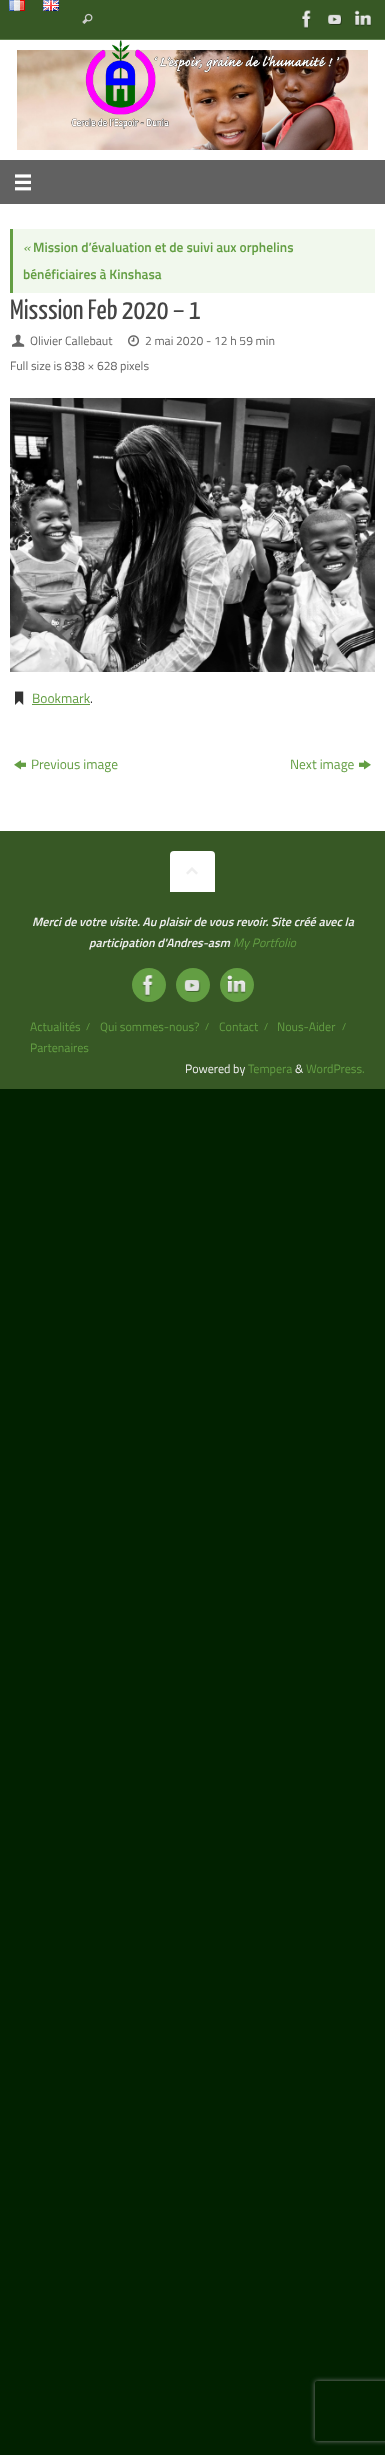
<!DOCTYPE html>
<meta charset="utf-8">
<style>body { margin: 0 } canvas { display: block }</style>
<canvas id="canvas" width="385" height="2455"></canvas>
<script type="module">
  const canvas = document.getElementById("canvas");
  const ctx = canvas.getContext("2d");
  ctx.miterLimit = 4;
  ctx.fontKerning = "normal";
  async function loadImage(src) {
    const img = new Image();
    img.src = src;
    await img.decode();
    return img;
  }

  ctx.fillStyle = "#012100";
  ctx.fillRect(0, 0, 385, 2455);
  ctx.fillStyle = "#375825";
  ctx.fillRect(0, 0, 385, 39);
  ctx.fillStyle = "#5f804d";
  ctx.fillRect(0, 39, 385, 1);
  ctx.drawImage(await loadImage("img1.png"), 9, 0, 16, 11);
  ctx.drawImage(await loadImage("img2.png"), 43, 0, 16, 11);
  ctx.drawImage(await loadImage("img3.png"), 82, 13, 11, 11);
  ctx.drawImage(await loadImage("img4.png"), 301, 10, 10, 19);
  ctx.drawImage(await loadImage("img5.png"), 328, 14, 14, 11);
  ctx.drawImage(await loadImage("img6.png"), 354, 10, 18, 17);
  ctx.fillStyle = "#ffffff";
  ctx.fillRect(0, 40, 385, 120);
  ctx.drawImage(await loadImage("img8.png"), 17, 50, 351, 100);
  ctx.drawImage(await loadImage("img7.png"), 71, 40, 269, 89);
  ctx.fillStyle = "#616161";
  ctx.fillRect(0, 160, 385, 44);
  ctx.drawImage(await loadImage("img9.png"), 15, 174, 16, 17);
  ctx.fillStyle = "#ffffff";
  ctx.fillRect(0, 204, 385, 627);
  ctx.fillStyle = "#f1f8ed";
  ctx.fillRect(13, 229, 362, 64);
  ctx.fillStyle = "#639e43";
  ctx.fillRect(10, 229, 3, 64);
  ctx.font = "italic 13.5px Titillium Web";
  ctx.fillText("«", 23, 252);
  ctx.font = "600 13.5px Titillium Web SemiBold";
  ctx.fillText("Mission d’évaluation et de suivi aux orphelins", 33, 252);
  ctx.fillText("bénéficiaires à Kinshasa", 23, 279);
  ctx.font = "28px Yanone Kaffeesatz";
  ctx.fillStyle = "#444444";
  ctx.fillText("Misssion Feb 2020 – 1", 10, 319);
  ctx.drawImage(await loadImage("img10.png"), 12, 334, 13, 13);
  ctx.font = "12.15px Titillium Web";
  ctx.fillStyle = "#666666";
  ctx.fillText("Olivier Callebaut", 30, 345);
  ctx.drawImage(await loadImage("img11.png"), 128, 335, 12, 12);
  ctx.fillText("2 mai 2020 - 12 h 59 min", 145, 345);
  ctx.fillText("Full size is 838 × 628 pixels", 10, 370);
  ctx.drawImage(await loadImage("img12.png"), 10, 398, 365, 274);
  ctx.drawImage(await loadImage("img13.png"), 15, 691, 9, 14);
  ctx.font = "13.5px Titillium Web";
  ctx.fillStyle = "#639e43";
  ctx.fillText("Bookmark", 32, 703);
  ctx.fillRect(32, 704, 58, 1);
  ctx.fillStyle = "#333333";
  ctx.fillText(".", 90, 703);
  ctx.drawImage(await loadImage("img14.png"), 14, 760, 12, 10);
  ctx.fillStyle = "#639e43";
  ctx.fillText("Previous image", 31, 769);
  ctx.fillText("Next image", 290, 769);
  ctx.drawImage(await loadImage("img15.png"), 359, 760, 12, 10);
  ctx.fillStyle = "#375825";
  ctx.fillRect(0, 831, 385, 258);
  ctx.fillStyle = "#ffffff";
  ctx.beginPath();
  ctx.roundRect(170, 851, 45, 41, [4, 4, 0, 0]);
  ctx.fill();
  ctx.drawImage(await loadImage("img16.png"), 186, 867, 12, 8);
  ctx.font = "italic 600 12.15px Titillium Web SemiBold";
  ctx.fillStyle = "#eeeeee";
  ctx.fillText("Merci de votre visite. Au plaisir de vous revoir. Site créé avec la", 32, 926);
  ctx.fillText("participation d'Andres-asm", 89, 947);
  ctx.font = "italic 12.15px Titillium Web";
  ctx.fillStyle = "#639e43";
  ctx.fillText("My Portfolio", 233, 947);
  ctx.beginPath();
  ctx.arc(149, 985, 17, 0, Math.PI * 2);
  ctx.fill();
  ctx.drawImage(await loadImage("img17.png"), 142, 975, 11, 22);
  ctx.beginPath();
  ctx.arc(193, 985, 17, 0, Math.PI * 2);
  ctx.fill();
  ctx.drawImage(await loadImage("img18.png"), 184, 980, 17, 12);
  ctx.beginPath();
  ctx.arc(237, 985, 17, 0, Math.PI * 2);
  ctx.fill();
  ctx.drawImage(await loadImage("img19.png"), 227, 975, 19, 19);
  ctx.font = "12.15px Titillium Web";
  ctx.fillText("Actualités", 30, 1031);
  ctx.font = "10px Titillium Web";
  ctx.fillText("/", 86, 1030);
  ctx.font = "12.15px Titillium Web";
  ctx.fillText("Qui sommes-nous?", 100, 1031);
  ctx.font = "10px Titillium Web";
  ctx.fillText("/", 205, 1030);
  ctx.font = "12.15px Titillium Web";
  ctx.fillText("Contact", 219, 1031);
  ctx.font = "10px Titillium Web";
  ctx.fillText("/", 264, 1030);
  ctx.font = "12.15px Titillium Web";
  ctx.fillText("Nous-Aider", 277, 1031);
  ctx.font = "10px Titillium Web";
  ctx.fillText("/", 342, 1030);
  ctx.font = "12.15px Titillium Web";
  ctx.fillText("Partenaires", 30, 1052);
  ctx.fillStyle = "#eeeeee";
  ctx.fillText("Powered by", 185, 1073);
  ctx.fillStyle = "#639e43";
  ctx.fillText("Tempera", 248, 1073);
  ctx.fillStyle = "#eeeeee";
  ctx.fillText("&", 295, 1073);
  ctx.fillStyle = "#639e43";
  ctx.fillText("WordPress.", 306, 1073);
  ctx.save();
  ctx.beginPath();
  ctx.moveTo(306, 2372);
  ctx.lineTo(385, 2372);
  ctx.lineTo(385, 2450);
  ctx.lineTo(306, 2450);
  ctx.closePath();
  ctx.moveTo(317, 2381);
  ctx.lineTo(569, 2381);
  ctx.bezierCurveTo(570, 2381, 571, 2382, 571, 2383);
  ctx.lineTo(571, 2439);
  ctx.bezierCurveTo(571, 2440, 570, 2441, 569, 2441);
  ctx.lineTo(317, 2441);
  ctx.bezierCurveTo(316, 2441, 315, 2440, 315, 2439);
  ctx.lineTo(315, 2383);
  ctx.bezierCurveTo(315, 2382, 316, 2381, 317, 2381);
  ctx.closePath();
  ctx.clip("evenodd");
  ctx.fillStyle = "#808080";
  ctx.filter = "blur(2.5px)";
  ctx.beginPath();
  ctx.roundRect(315, 2381, 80, 60, 2);
  ctx.fill();
  ctx.filter = "none";
  ctx.restore();
</script>
